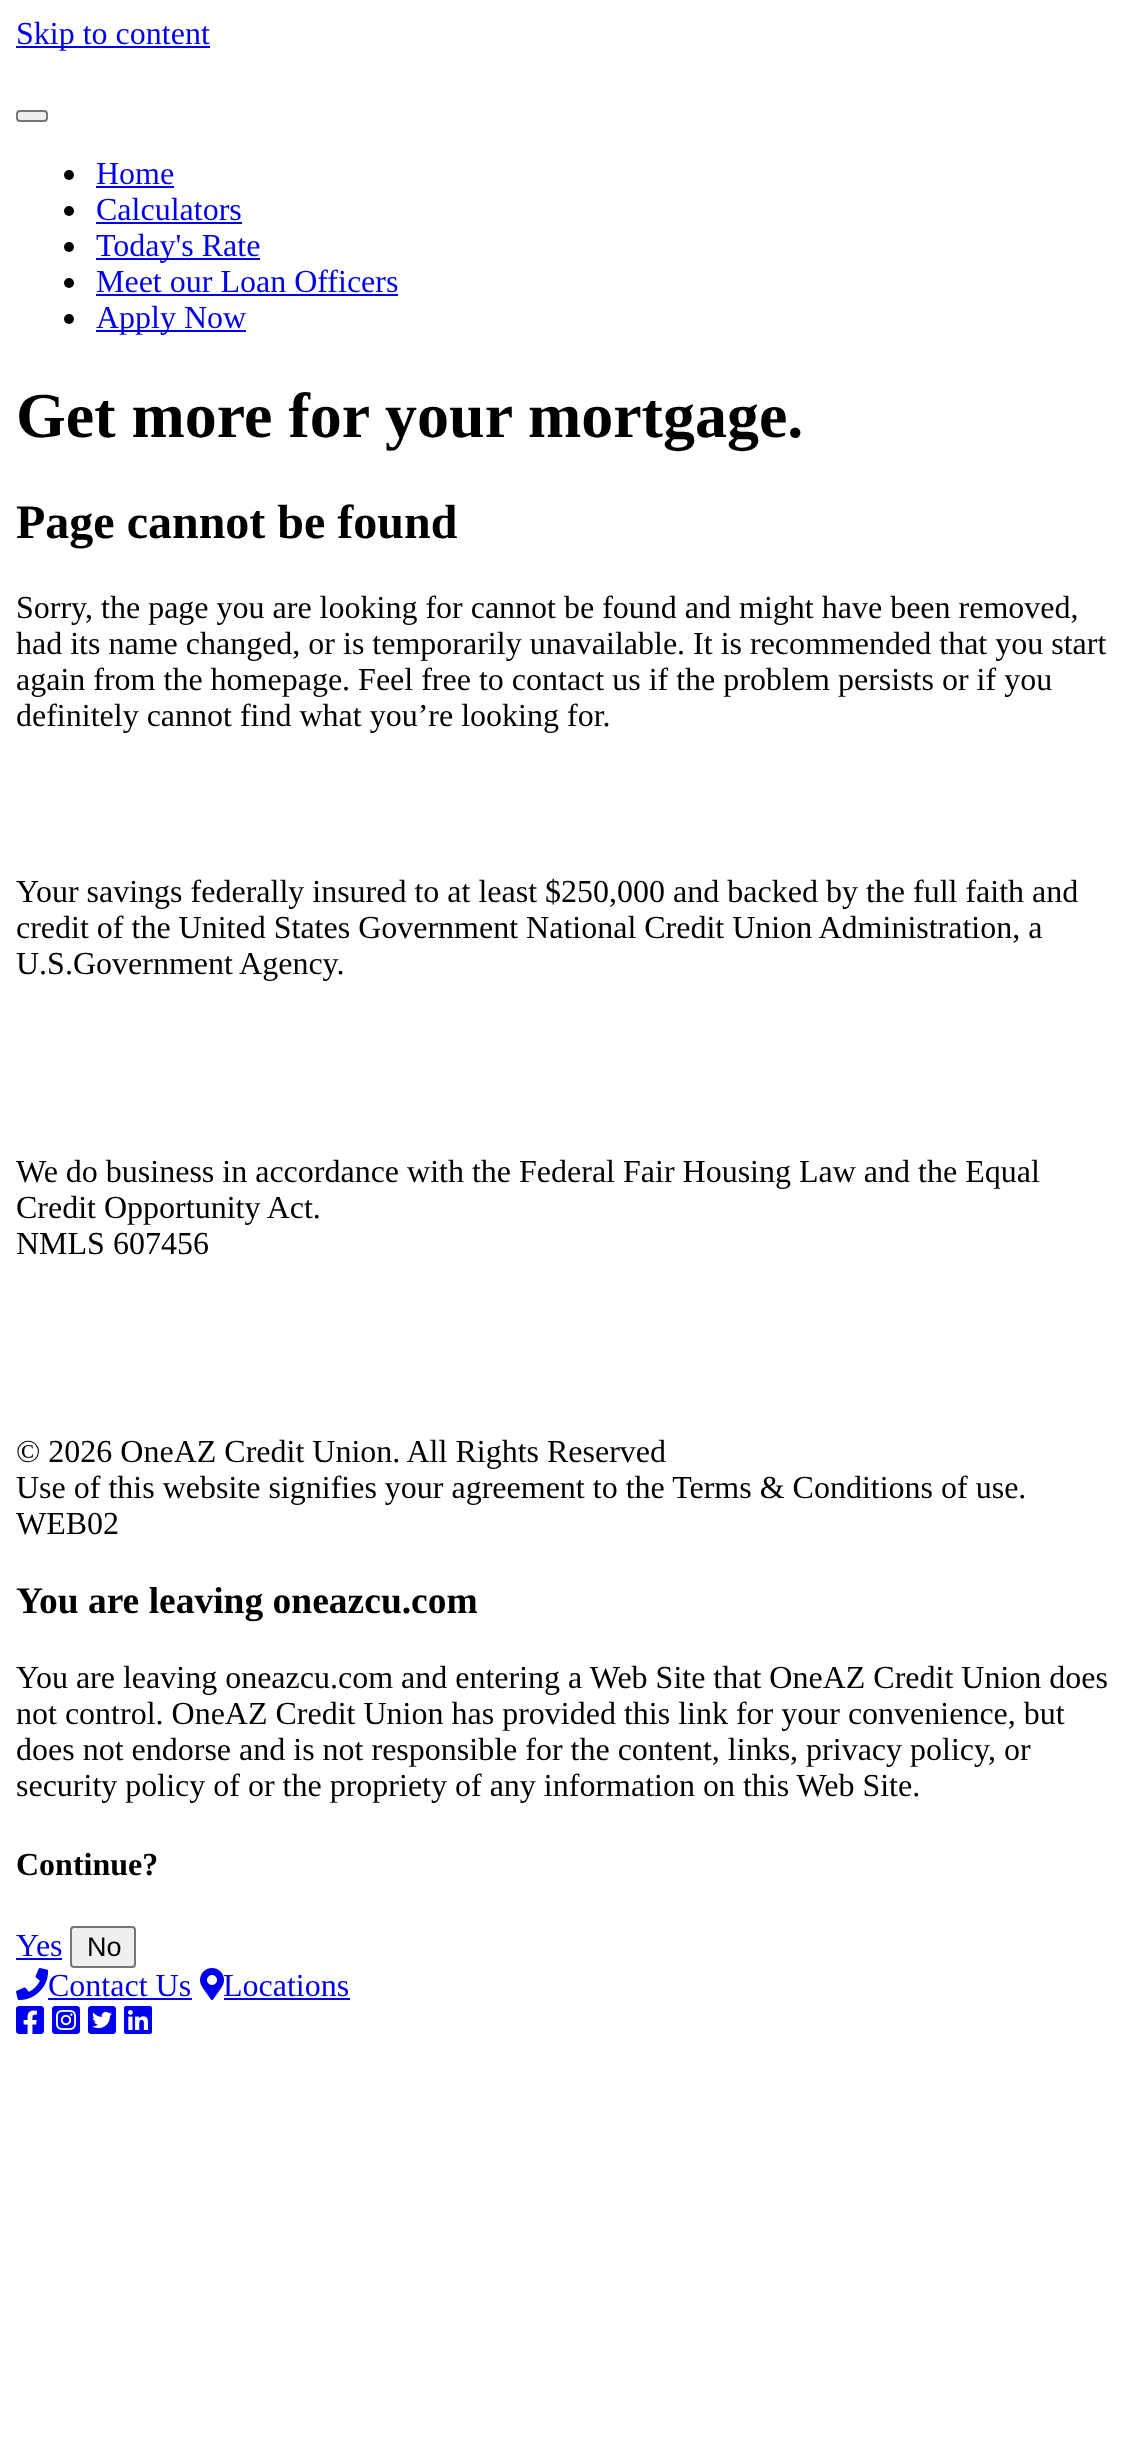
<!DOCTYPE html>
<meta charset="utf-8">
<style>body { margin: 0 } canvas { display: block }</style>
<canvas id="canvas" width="1129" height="2460"></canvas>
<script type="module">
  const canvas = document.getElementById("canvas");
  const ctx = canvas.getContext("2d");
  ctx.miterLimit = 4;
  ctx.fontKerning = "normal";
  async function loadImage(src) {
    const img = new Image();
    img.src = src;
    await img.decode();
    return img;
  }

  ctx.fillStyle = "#ffffff";
  ctx.fillRect(0, 0, 1129, 2460);
  ctx.fillStyle = "#0000ee";
  ctx.fillRect(16, 46, 194, 2);
  ctx.font = "32px Liberation Serif";
  ctx.fillText("Skip to content", 16, 44);
  ctx.fillStyle = "#efefef";
  ctx.beginPath();
  ctx.roundRect(17, 111, 30, 10, 3);
  ctx.fill();
  ctx.strokeStyle = "#767676";
  ctx.lineWidth = 2;
  ctx.stroke();
  ctx.fillStyle = "#000000";
  ctx.beginPath();
  ctx.arc(69, 175, 5, 0, Math.PI * 2);
  ctx.fill();
  ctx.fillStyle = "#0000ee";
  ctx.fillText("Home", 96, 184);
  ctx.fillRect(96, 186, 78, 2);
  ctx.fillStyle = "#000000";
  ctx.beginPath();
  ctx.arc(69, 211, 5, 0, Math.PI * 2);
  ctx.fill();
  ctx.fillStyle = "#0000ee";
  ctx.fillText("Calculators", 96, 220);
  ctx.fillRect(96, 222, 146, 2);
  ctx.fillStyle = "#000000";
  ctx.beginPath();
  ctx.arc(69, 247, 5, 0, Math.PI * 2);
  ctx.fill();
  ctx.fillStyle = "#0000ee";
  ctx.fillRect(96, 258, 164, 2);
  ctx.fillText("Today's Rate", 96, 256);
  ctx.fillStyle = "#000000";
  ctx.beginPath();
  ctx.arc(69, 283, 5, 0, Math.PI * 2);
  ctx.fill();
  ctx.fillStyle = "#0000ee";
  ctx.fillText("Meet our Loan Officers", 96, 292);
  ctx.fillRect(96, 294, 302, 2);
  ctx.fillStyle = "#000000";
  ctx.beginPath();
  ctx.arc(69, 319, 5, 0, Math.PI * 2);
  ctx.fill();
  ctx.fillStyle = "#0000ee";
  ctx.fillRect(96, 330, 150, 2);
  ctx.fillText("Apply Now", 96, 328);
  ctx.font = "bold 64px Liberation Serif";
  ctx.fillStyle = "#000000";
  ctx.fillText("Get more for your mortgage.", 16, 437);
  ctx.font = "bold 48px Liberation Serif";
  ctx.fillText("Page cannot be found", 16, 538);
  ctx.font = "32px Liberation Serif";
  ctx.fillText("Sorry, the page you are looking for cannot be found and might have been removed,", 16, 618);
  ctx.fillText("had its name changed, or is temporarily unavailable. It is recommended that you start", 16, 654);
  ctx.fillText("again from the homepage. Feel free to contact us if the problem persists or if you", 16, 690);
  ctx.fillText("definitely cannot find what you’re looking for.", 16, 726);
  ctx.fillText("Your savings federally insured to at least $250,000 and backed by the full faith and", 16, 902);
  ctx.fillText("credit of the United States Government National Credit Union Administration, a", 16, 938);
  ctx.fillText("U.S.Government Agency.", 16, 974);
  ctx.fillText("We do business in accordance with the Federal Fair Housing Law and the Equal", 16, 1182);
  ctx.fillText("Credit Opportunity Act.", 16, 1218);
  ctx.fillText("NMLS 607456", 16, 1254);
  ctx.fillText("© 2026 OneAZ Credit Union. All Rights Reserved", 16, 1462);
  ctx.fillText("Use of this website signifies your agreement to the Terms & Conditions of use.", 16, 1498);
  ctx.fillText("WEB02", 16, 1534);
  ctx.font = "bold 37.5px Liberation Serif";
  ctx.fillText("You are leaving oneazcu.com", 16, 1613);
  ctx.font = "32px Liberation Serif";
  ctx.fillText("You are leaving oneazcu.com and entering a Web Site that OneAZ Credit Union does", 16, 1688);
  ctx.fillText("not control. OneAZ Credit Union has provided this link for your convenience, but", 16, 1724);
  ctx.fillText("does not endorse and is not responsible for the content, links, privacy policy, or", 16, 1760);
  ctx.fillText("security policy of or the propriety of any information on this Web Site.", 16, 1796);
  ctx.font = "bold 32px Liberation Serif";
  ctx.fillText("Continue?", 16, 1875);
  ctx.font = "32px Liberation Serif";
  ctx.fillStyle = "#0000ee";
  ctx.fillText("Yes", 16, 1956);
  ctx.fillRect(16, 1958, 46, 2);
  ctx.fillStyle = "#efefef";
  ctx.beginPath();
  ctx.roundRect(71, 1927, 64, 40, 3);
  ctx.fill();
  ctx.stroke();
  ctx.font = "27px Liberation Sans";
  ctx.fillStyle = "#000000";
  ctx.fillText("No", 87, 1956);
  ctx.drawImage(await loadImage("img1.png"), 16, 1968, 33, 32);
  ctx.font = "32px Liberation Serif";
  ctx.fillStyle = "#0000ee";
  ctx.fillText("Contact Us", 48, 1996);
  ctx.fillRect(48, 1998, 144, 2);
  ctx.drawImage(await loadImage("img2.png"), 200, 1968, 24, 32);
  ctx.fillText("Locations", 223, 1996);
  ctx.fillRect(224, 1998, 126, 2);
  ctx.drawImage(await loadImage("img3.png"), 16, 2006, 28, 28);
  ctx.drawImage(await loadImage("img4.png"), 52, 2006, 28, 28);
  ctx.drawImage(await loadImage("img5.png"), 88, 2006, 28, 28);
  ctx.drawImage(await loadImage("img6.png"), 124, 2006, 28, 28);
</script>
